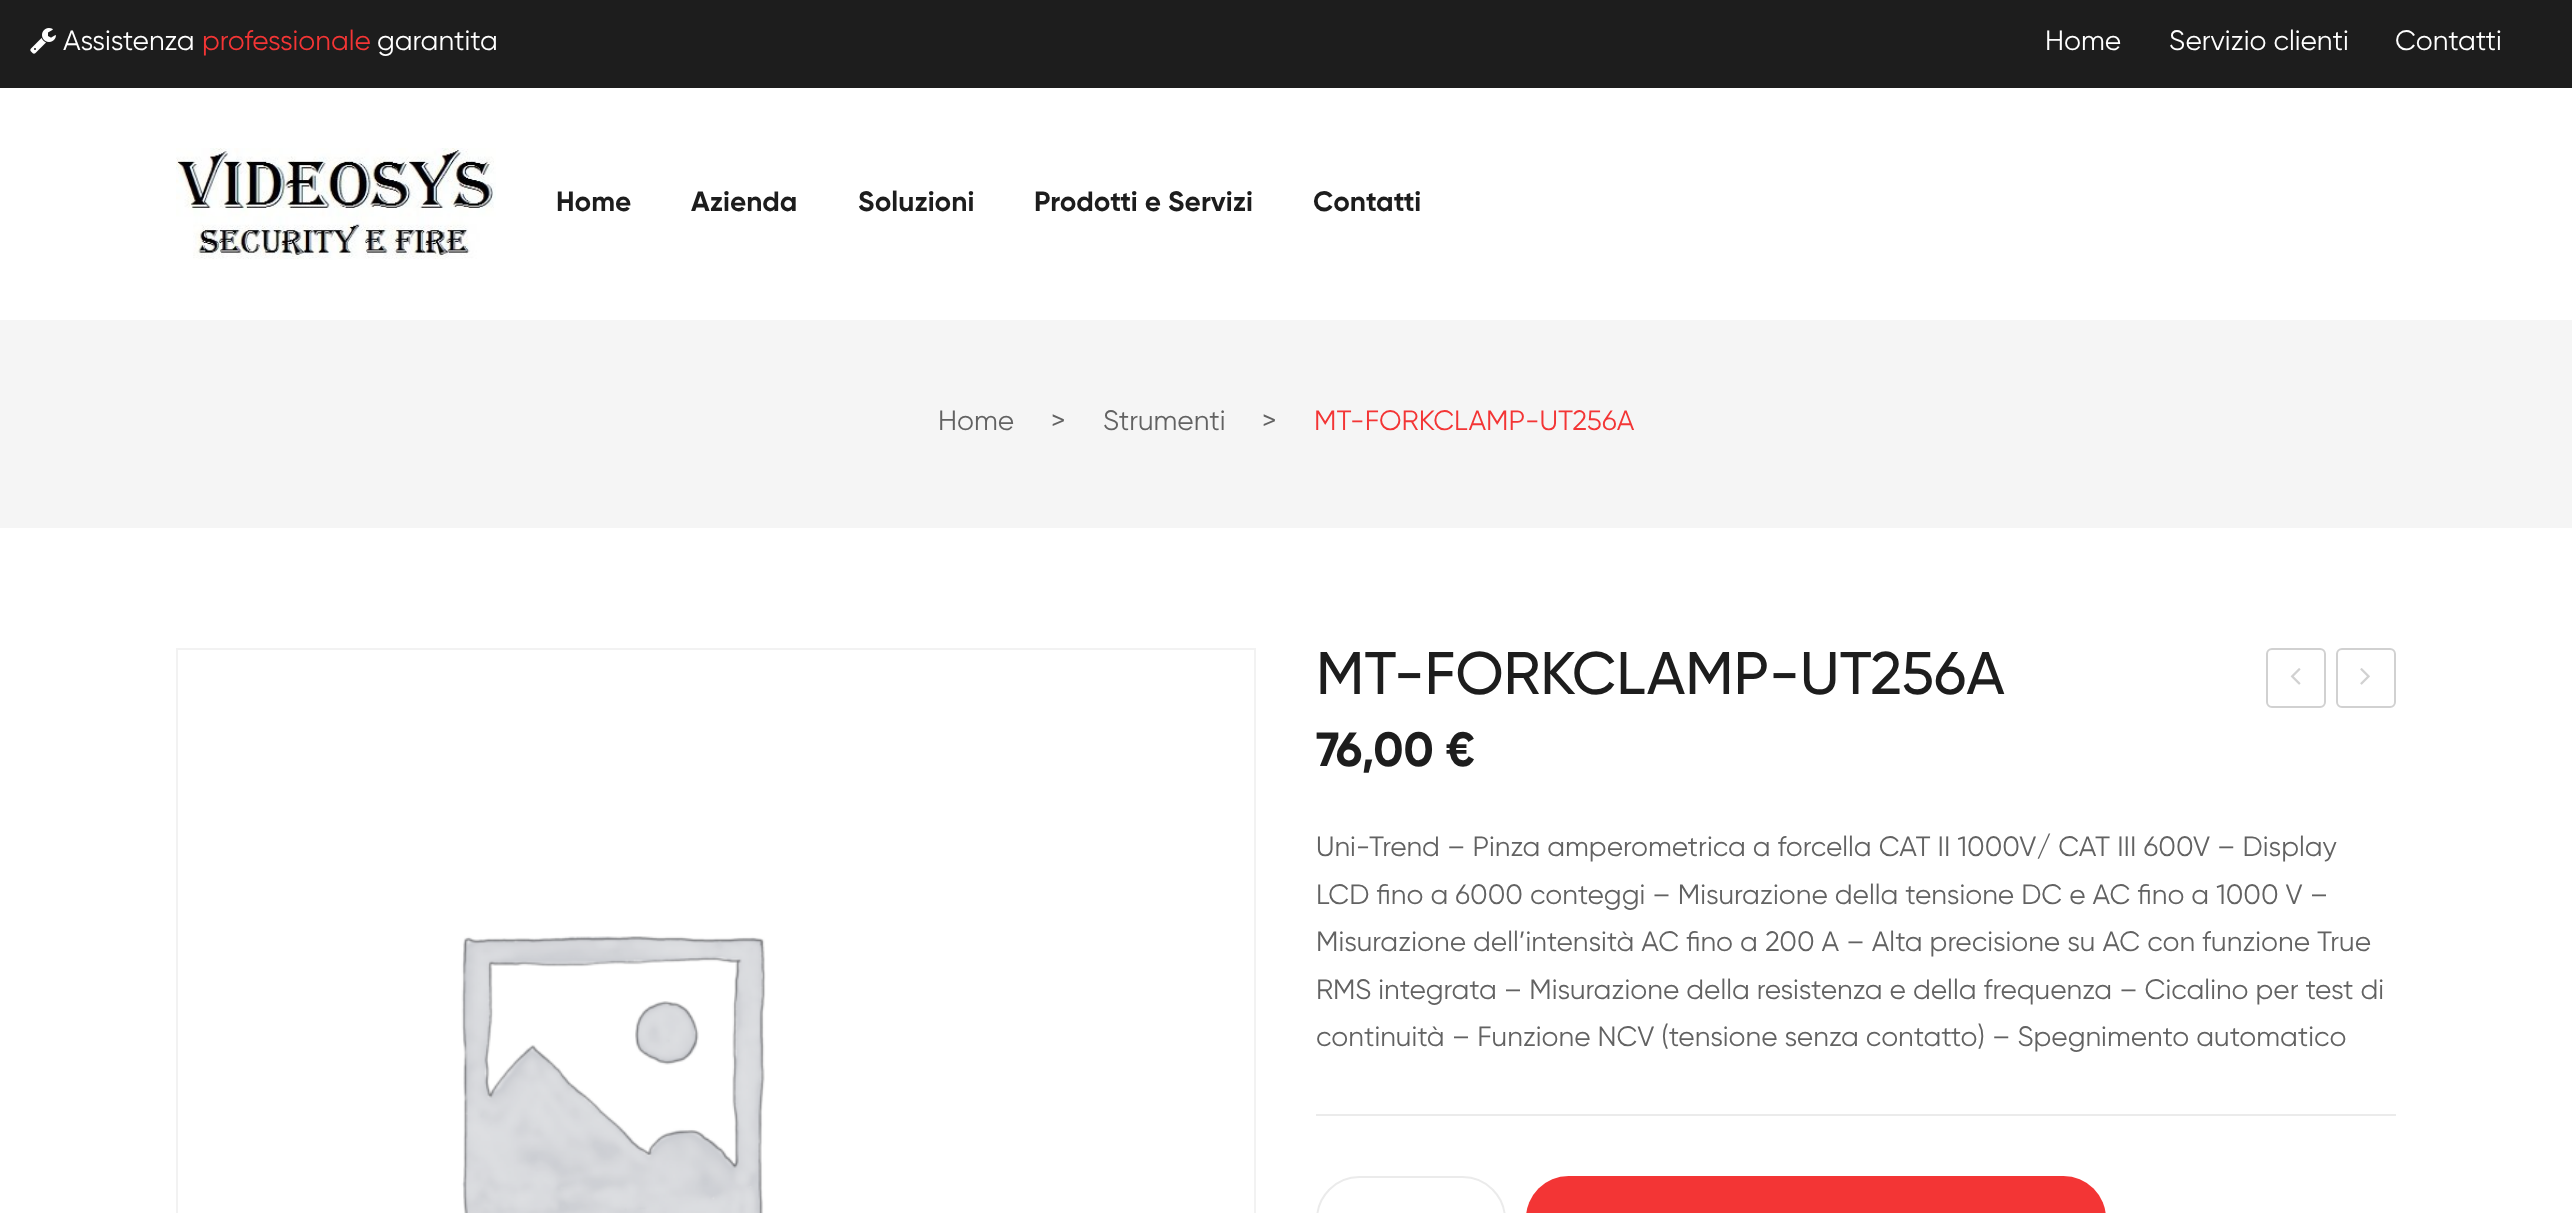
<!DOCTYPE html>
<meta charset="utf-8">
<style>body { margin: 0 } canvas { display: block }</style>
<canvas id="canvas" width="2572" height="1213"></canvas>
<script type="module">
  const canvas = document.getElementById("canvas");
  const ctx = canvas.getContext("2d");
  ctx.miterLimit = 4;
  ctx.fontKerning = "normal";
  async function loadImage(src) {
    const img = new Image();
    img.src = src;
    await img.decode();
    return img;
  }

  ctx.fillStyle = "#ffffff";
  ctx.fillRect(0, 0, 2572, 1213);
  ctx.fillStyle = "#1d1d1d";
  ctx.fillRect(0, 0, 2572, 88);
  ctx.drawImage(await loadImage("img1.png"), 30, 28, 26, 26);
  ctx.font = "28px Gilroy";
  ctx.fillStyle = "#ffffff";
  ctx.fillText("Assistenza", 63, 50);
  ctx.fillStyle = "#f33535";
  ctx.fillText("professionale", 202, 50);
  ctx.fillStyle = "#ffffff";
  ctx.fillText("garantita", 377, 50);
  ctx.fillText("Home", 2045, 50);
  ctx.fillText("Servizio clienti", 2169, 50);
  ctx.fillText("Contatti", 2395, 50);
  ctx.drawImage(await loadImage("img2.png"), 176, 148, 320, 112);
  ctx.font = "bold 28px Gilroy";
  ctx.fillStyle = "#1d1d1d";
  ctx.fillText("Home", 556, 211);
  ctx.fillText("Azienda", 691, 211);
  ctx.fillText("Soluzioni", 858, 211);
  ctx.fillText("Prodotti e Servizi", 1034, 211);
  ctx.fillText("Contatti", 1313, 211);
  ctx.fillStyle = "#f5f5f5";
  ctx.fillRect(0, 320, 2572, 208);
  ctx.font = "28px Gilroy";
  ctx.fillStyle = "#626262";
  ctx.fillText("Home", 938, 430);
  ctx.fillText(">", 1051, 430);
  ctx.fillText("Strumenti", 1103, 430);
  ctx.fillText(">", 1262, 430);
  ctx.fillStyle = "#f33535";
  ctx.fillText("MT-FORKCLAMP-UT256A", 1314, 430);
  ctx.strokeStyle = "#f2f2f2";
  ctx.lineWidth = 2;
  ctx.strokeRect(177, 649, 1078, 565);
  ctx.drawImage(await loadImage("img3.png"), 461, 936, 305, 277);
  ctx.font = "500 60px Gilroy";
  ctx.fillStyle = "#1d1d1d";
  ctx.fillText("MT-FORKCLAMP-UT256A", 1316, 694);
  ctx.beginPath();
  ctx.roundRect(2267, 649, 58, 58, 5);
  ctx.strokeStyle = "#d1d1d1";
  ctx.stroke();
  ctx.drawImage(await loadImage("img4.png"), 2290, 668, 11, 17);
  ctx.beginPath();
  ctx.roundRect(2337, 649, 58, 58, 5);
  ctx.stroke();
  ctx.drawImage(await loadImage("img5.png"), 2360, 668, 10, 17);
  ctx.font = "bold 48px Gilroy";
  ctx.fillText("76,00 €", 1316, 766);
  ctx.fillStyle = "#ebebeb";
  ctx.fillRect(1316, 1114, 1080, 2);
  ctx.font = "28px Gilroy";
  ctx.fillStyle = "#626262";
  ctx.fillText("Uni-Trend – Pinza amperometrica a forcella CAT II 1000V/ CAT III 600V – Display", 1316, 856);
  ctx.fillText("LCD fino a 6000 conteggi – Misurazione della tensione DC e AC fino a 1000 V –", 1316, 904);
  ctx.fillText("Misurazione dell’intensità AC fino a 200 A – Alta precisione su AC con funzione True", 1316, 951);
  ctx.fillText("RMS integrata – Misurazione della resistenza e della frequenza – Cicalino per test di", 1316, 999);
  ctx.fillText("continuità – Funzione NCV (tensione senza contatto) – Spegnimento automatico", 1316, 1046);
  ctx.beginPath();
  ctx.roundRect(1317, 1177, 188, 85, 47);
  ctx.strokeStyle = "#ebebeb";
  ctx.stroke();
  ctx.fillStyle = "#f33535";
  ctx.beginPath();
  ctx.roundRect(1526, 1176, 580, 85, 48);
  ctx.fill();
</script>
